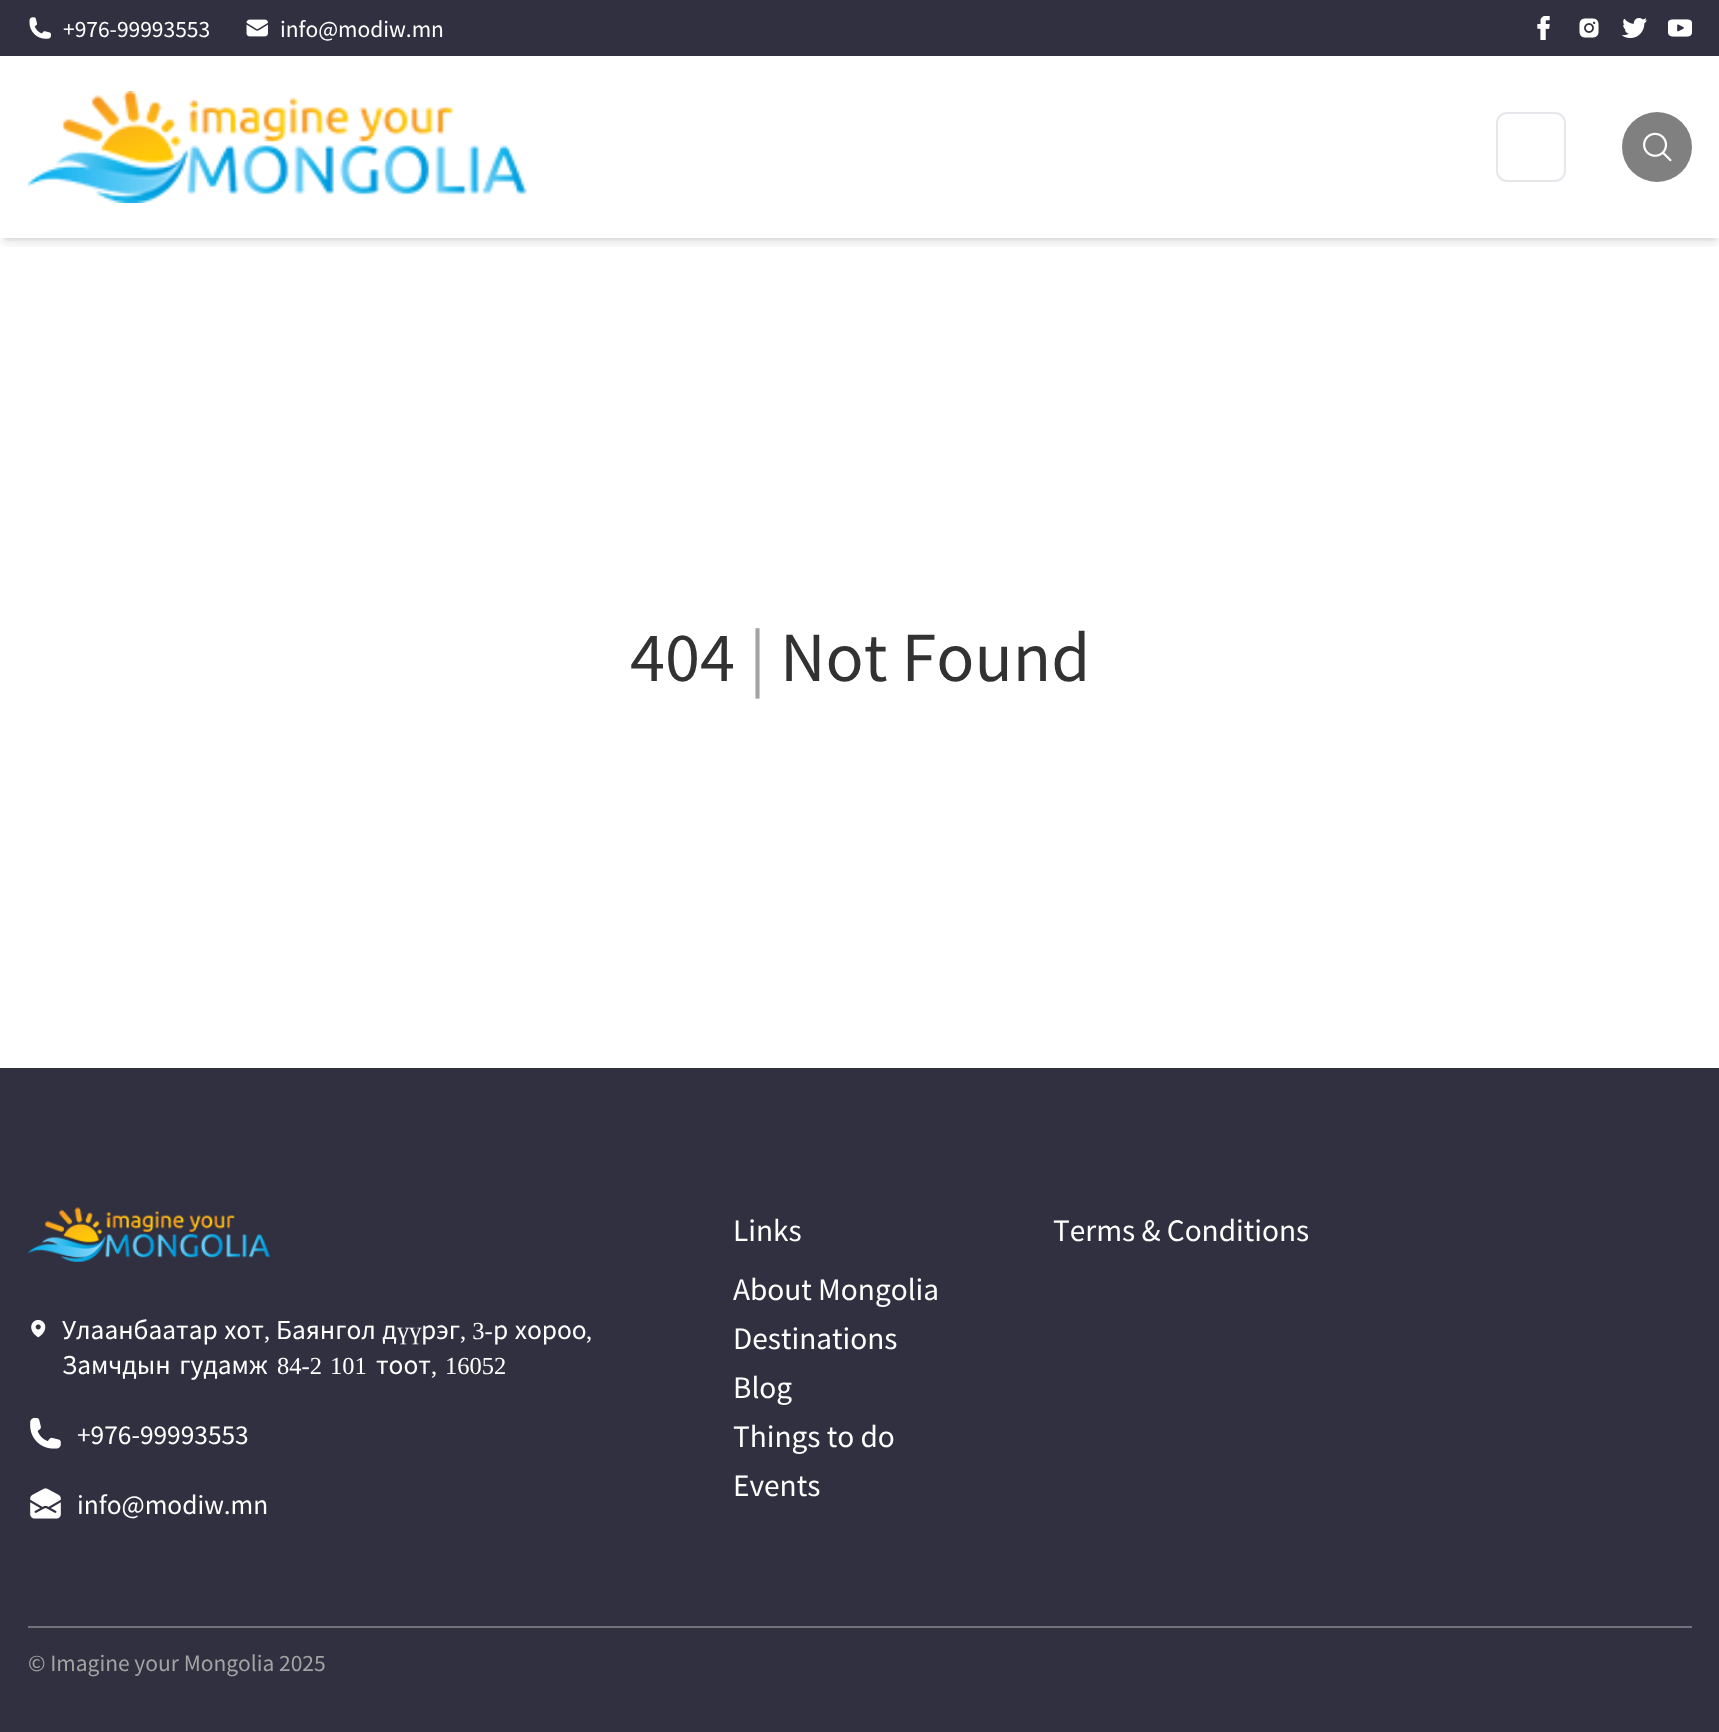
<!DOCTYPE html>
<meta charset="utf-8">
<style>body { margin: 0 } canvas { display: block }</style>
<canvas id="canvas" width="1719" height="1732"></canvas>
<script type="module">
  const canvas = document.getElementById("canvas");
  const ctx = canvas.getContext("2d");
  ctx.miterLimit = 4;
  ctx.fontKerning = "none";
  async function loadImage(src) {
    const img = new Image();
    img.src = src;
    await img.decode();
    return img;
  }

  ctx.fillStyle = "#ffffff";
  ctx.fillRect(0, 0, 1719, 1732);
  ctx.fillStyle = "#313041";
  ctx.fillRect(0, 0, 1719, 56);
  ctx.drawImage(await loadImage("img1.png"), 29, 17, 22, 22);
  ctx.font = "100 21px Noto Sans JP";
  ctx.fillStyle = "#ffffff";
  ctx.fillText("+976-99993553", 63, 37);
  ctx.drawImage(await loadImage("img2.png"), 246, 19, 22, 18);
  ctx.fillText("info@modiw.mn", 280, 37);
  ctx.drawImage(await loadImage("img3.png"), 1537, 16, 13, 24);
  ctx.drawImage(await loadImage("img4.png"), 1579, 18, 20, 20);
  ctx.drawImage(await loadImage("img5.png"), 1622, 18, 25, 20);
  ctx.drawImage(await loadImage("img6.png"), 1668, 19, 24, 18);
  ctx.save();
  ctx.beginPath();
  ctx.rect(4, 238, 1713, 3);
  ctx.clip();
  ctx.fillStyle = "rgba(0, 0, 0, 0.1)";
  ctx.filter = "blur(3.5px)";
  ctx.beginPath();
  ctx.rect(4, 63, 1713, 175);
  ctx.fill();
  ctx.filter = "none";
  ctx.restore();
  ctx.save();
  ctx.beginPath();
  ctx.rect(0, 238, 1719, 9);
  ctx.clip();
  ctx.fillStyle = "rgba(0, 0, 0, 0.1)";
  ctx.filter = "blur(5px)";
  ctx.beginPath();
  ctx.rect(2, 65, 1717, 178);
  ctx.fill();
  ctx.filter = "none";
  ctx.restore();
  ctx.drawImage(await loadImage("img7.png"), 28, 91, 499, 112);
  ctx.beginPath();
  ctx.roundRect(1497, 113, 68, 68, 10);
  ctx.strokeStyle = "#e5e7eb";
  ctx.lineWidth = 2;
  ctx.stroke();
  ctx.fillStyle = "#808080";
  ctx.beginPath();
  ctx.arc(1657, 147, 35, 0, Math.PI * 2);
  ctx.fill();
  ctx.drawImage(await loadImage("img8.png"), 1643, 132, 29, 30);
  ctx.font = "100 63px Noto Sans JP";
  ctx.fillStyle = "#323232";
  ctx.fillText("404", 630, 681);
  ctx.fillStyle = "#a3a3a3";
  ctx.fillText("|", 749, 681);
  ctx.fillStyle = "#323232";
  ctx.fillText("Not Found", 780, 681);
  ctx.fillStyle = "#313041";
  ctx.fillRect(0, 1068, 1719, 664);
  ctx.drawImage(await loadImage("img9.png"), 28, 1207, 243, 55);
  ctx.drawImage(await loadImage("img10.png"), 31, 1319, 15, 19);
  ctx.wordSpacing = "1px";
  ctx.font = "100 24.5px Noto Sans JP";
  ctx.fillStyle = "#ffffff";
  ctx.fillText("Улаанбаатар хот", 62, 1339);
  ctx.wordSpacing = "0px";
  ctx.font = "24.5px Liberation Serif";
  ctx.fillText(",", 264, 1339);
  ctx.wordSpacing = "1px";
  ctx.font = "100 24.5px Noto Sans JP";
  ctx.fillText("Баянгол д", 276, 1339);
  ctx.wordSpacing = "0px";
  ctx.font = "24.5px Liberation Serif";
  ctx.fillText("үү", 397, 1339);
  ctx.font = "100 24.5px Noto Sans JP";
  ctx.fillText("рэг", 421, 1339);
  ctx.font = "24.5px Liberation Serif";
  ctx.fillText(", 3-", 460, 1339);
  ctx.wordSpacing = "1px";
  ctx.font = "100 24.5px Noto Sans JP";
  ctx.fillText("р хороо", 493, 1339);
  ctx.wordSpacing = "0px";
  ctx.font = "24.5px Liberation Serif";
  ctx.fillText(",", 586, 1339);
  ctx.wordSpacing = "3px";
  ctx.font = "100 24.5px Noto Sans JP";
  ctx.fillText("Замчдын гудамж", 62, 1374);
  ctx.wordSpacing = "0px";
  ctx.font = "24.5px Liberation Serif";
  ctx.fillText("84-2", 277, 1374);
  ctx.fillText("101", 330, 1374);
  ctx.font = "100 24.5px Noto Sans JP";
  ctx.fillText("тоот", 376, 1374);
  ctx.font = "24.5px Liberation Serif";
  ctx.fillText(",", 431, 1374);
  ctx.fillText("16052", 445, 1374);
  ctx.drawImage(await loadImage("img11.png"), 30, 1417, 31, 32);
  ctx.font = "100 24.5px Noto Sans JP";
  ctx.fillText("+976-99993553", 77, 1444);
  ctx.drawImage(await loadImage("img12.png"), 30, 1488, 31, 31);
  ctx.fillText("info@modiw.mn", 77, 1514);
  ctx.font = "100 28px Noto Sans JP";
  ctx.fillText("Links", 733, 1241);
  ctx.fillText("About Mongolia", 733, 1300);
  ctx.fillText("Destinations", 733, 1349);
  ctx.fillText("Blog", 733, 1398);
  ctx.fillText("Things to do", 733, 1447);
  ctx.fillText("Events", 733, 1496);
  ctx.fillText("Terms & Conditions", 1053, 1241);
  ctx.fillStyle = "#72727c";
  ctx.fillRect(28, 1626, 1664, 2);
  ctx.font = "100 21px Noto Sans JP";
  ctx.fillStyle = "#a3a3a3";
  ctx.fillText("© Imagine your Mongolia 2025", 28, 1671);
</script>
